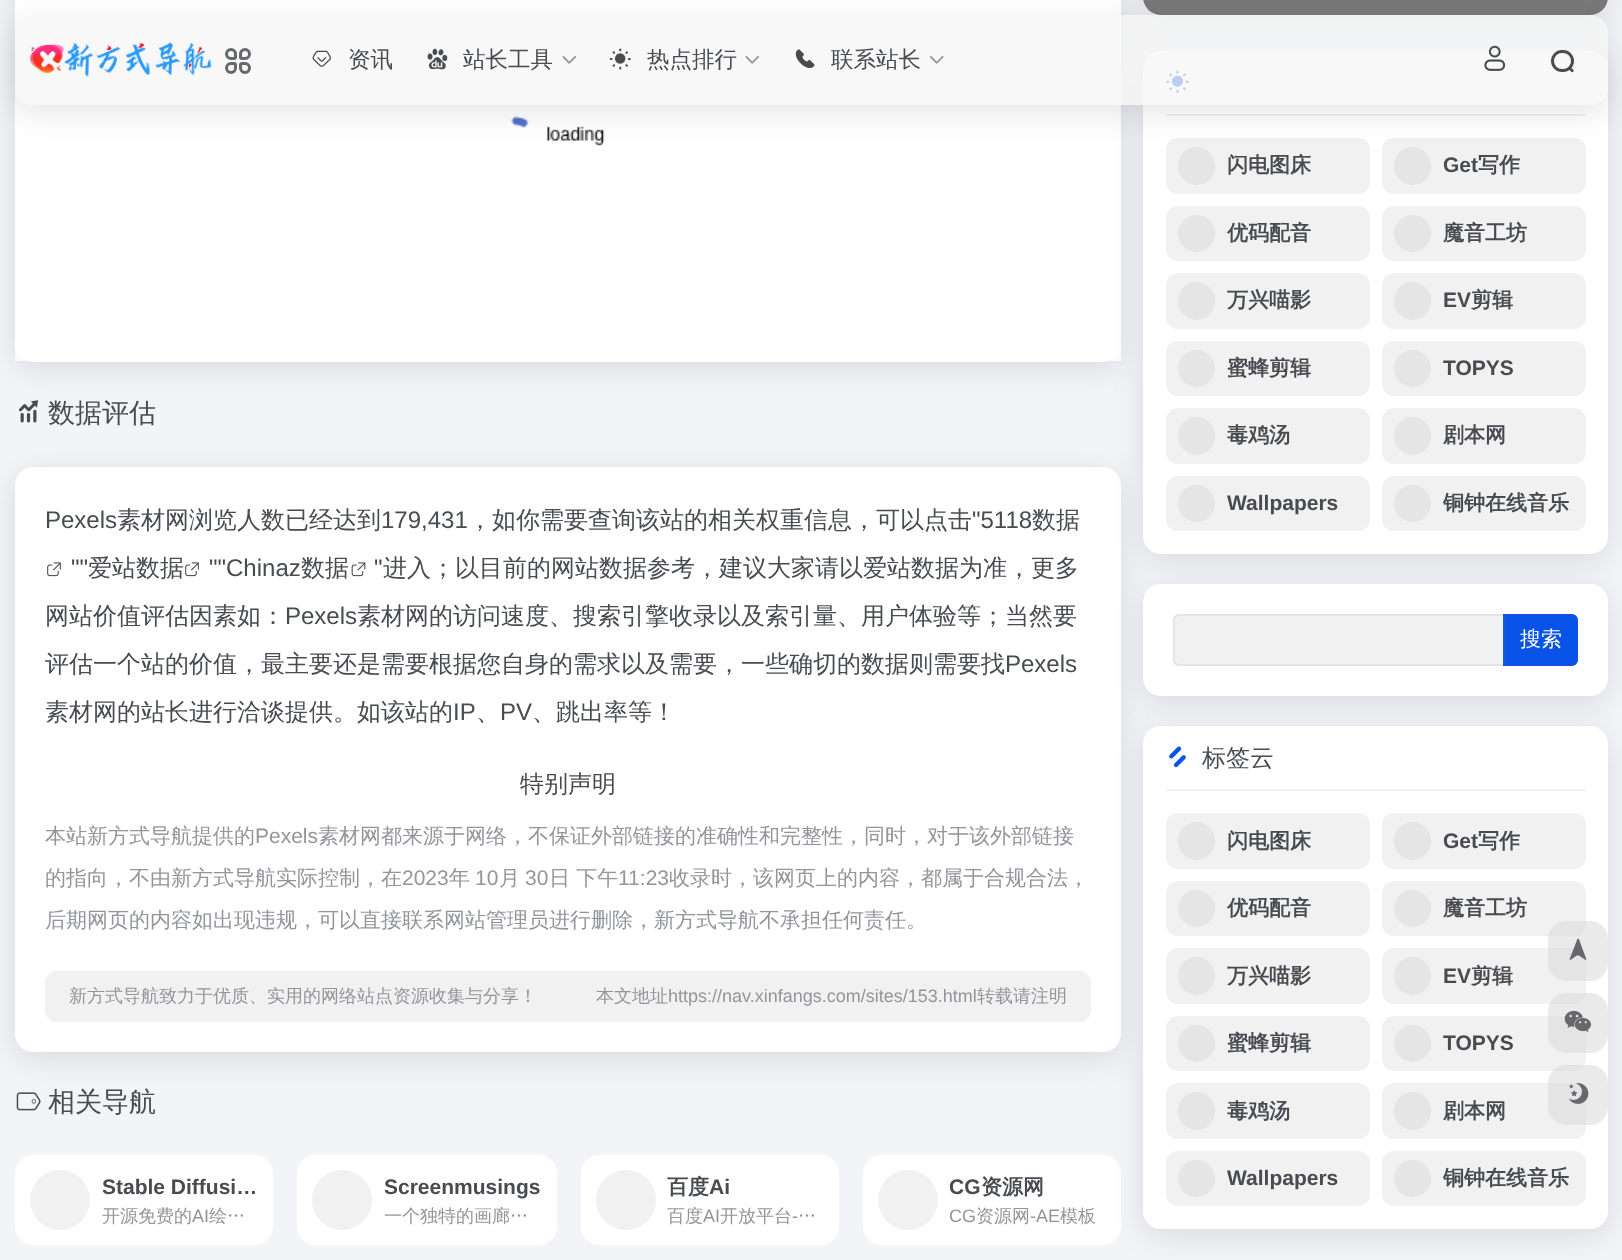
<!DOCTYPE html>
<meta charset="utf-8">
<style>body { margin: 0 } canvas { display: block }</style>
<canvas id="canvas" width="1622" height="1260"></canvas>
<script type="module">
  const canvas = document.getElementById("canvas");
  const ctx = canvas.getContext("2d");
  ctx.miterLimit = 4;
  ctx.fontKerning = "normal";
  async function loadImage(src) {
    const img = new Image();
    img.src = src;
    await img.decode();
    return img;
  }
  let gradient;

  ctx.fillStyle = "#f2f4f7";
  ctx.fillRect(0, 0, 1622, 1260);
  ctx.drawImage(await loadImage("img10.png"), 19, 400, 19, 23);
  ctx.fillStyle = "rgba(0, 0, 0, 0.1)";
  ctx.filter = "blur(15px)";
  ctx.beginPath();
  ctx.roundRect(15, -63, 1106, 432, 18);
  ctx.fill();
  ctx.filter = "none";
  ctx.fillStyle = "#ffffff";
  ctx.beginPath();
  ctx.roundRect(15, -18, 1106, 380, 18);
  ctx.fill();
  ctx.drawImage(await loadImage("img9.png"), 15, 116, 1106, 245);
  ctx.fillStyle = "rgba(0, 0, 0, 0.1)";
  ctx.filter = "blur(15px)";
  ctx.beginPath();
  ctx.roundRect(1143, -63, 465, 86, 18);
  ctx.fill();
  ctx.filter = "none";
  ctx.fillStyle = "#ffffff";
  ctx.beginPath();
  ctx.roundRect(1143, -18, 465, 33, 18);
  ctx.fill();
  ctx.drawImage(await loadImage("img13.png"), 16, 1092, 25, 19);
  ctx.fillStyle = "rgba(0, 0, 0, 0.1)";
  ctx.filter = "blur(15px)";
  ctx.beginPath();
  ctx.roundRect(15, 474, 1106, 585, 18);
  ctx.fill();
  ctx.filter = "none";
  ctx.fillStyle = "#ffffff";
  ctx.beginPath();
  ctx.roundRect(15, 467, 1106, 585, 18);
  ctx.fill();
  ctx.fillStyle = "rgba(0, 0, 0, 0.1)";
  ctx.filter = "blur(15px)";
  ctx.beginPath();
  ctx.roundRect(1143, 59, 465, 502, 18);
  ctx.fill();
  ctx.filter = "none";
  ctx.fillStyle = "rgba(120, 120, 120, 0.1)";
  ctx.beginPath();
  ctx.roundRect(1143, -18, 465, 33, 18);
  ctx.fill();
  gradient = ctx.createLinearGradient(1376, 14, 1376, -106);
  gradient.addColorStop(0.2, "rgba(0, 0, 0, 0.5)");
  gradient.addColorStop(0.8, "rgba(0, 0, 0, 0)");
  ctx.fillStyle = gradient;
  ctx.beginPath();
  ctx.moveTo(1143, -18);
  ctx.lineTo(1608, -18);
  ctx.lineTo(1608, -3);
  ctx.bezierCurveTo(1608, 7, 1600, 15, 1590, 15);
  ctx.lineTo(1161, 15);
  ctx.bezierCurveTo(1151, 15, 1143, 7, 1143, -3);
  ctx.closePath();
  ctx.fill();
  ctx.fillStyle = "#ffffff";
  ctx.beginPath();
  ctx.roundRect(1143, 51, 465, 503, 18);
  ctx.fill();
  ctx.drawImage(await loadImage("img14.png"), 1166, 70, 23, 23);
  ctx.fillStyle = "#f1f1f1";
  ctx.fillRect(1166, 114, 420, 2);
  ctx.beginPath();
  ctx.roundRect(1166, 138, 204, 56, 12);
  ctx.fill();
  ctx.fillStyle = "#e5e5e5";
  ctx.beginPath();
  ctx.roundRect(1178, 147, 37, 38, 18.5);
  ctx.fill();
  ctx.fillStyle = "#f1f1f1";
  ctx.beginPath();
  ctx.roundRect(1382, 138, 204, 56, 12);
  ctx.fill();
  ctx.fillStyle = "#e5e5e5";
  ctx.beginPath();
  ctx.roundRect(1394, 147, 37, 38, 18.5);
  ctx.fill();
  ctx.save();
  ctx.beginPath();
  ctx.moveTo(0, 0);
  ctx.lineTo(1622, 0);
  ctx.lineTo(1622, 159);
  ctx.lineTo(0, 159);
  ctx.closePath();
  ctx.moveTo(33, 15);
  ctx.lineTo(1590, 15);
  ctx.bezierCurveTo(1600, 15, 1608, 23, 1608, 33);
  ctx.lineTo(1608, 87);
  ctx.bezierCurveTo(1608, 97, 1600, 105, 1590, 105);
  ctx.lineTo(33, 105);
  ctx.bezierCurveTo(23, 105, 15, 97, 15, 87);
  ctx.lineTo(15, 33);
  ctx.bezierCurveTo(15, 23, 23, 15, 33, 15);
  ctx.closePath();
  ctx.clip("evenodd");
  ctx.fillStyle = "rgba(0, 0, 0, 0.1)";
  ctx.filter = "blur(15px)";
  ctx.beginPath();
  ctx.roundRect(15, 23, 1593, 90, 18);
  ctx.fill();
  ctx.filter = "none";
  ctx.restore();
  ctx.fillStyle = "rgba(245, 245, 245, 0.75)";
  ctx.beginPath();
  ctx.roundRect(15, 15, 1593, 90, 18);
  ctx.fill();
  ctx.drawImage(await loadImage("img1.png"), 30, 42, 182, 35);
  ctx.beginPath();
  ctx.roundRect(226.5, 49.5, 9, 9, [4.5, 4.5, 1.5, 4.5]);
  ctx.strokeStyle = "#66686b";
  ctx.lineWidth = 3;
  ctx.stroke();
  ctx.beginPath();
  ctx.roundRect(240.5, 49.5, 9, 9, [4.5, 4.5, 4.5, 1.5]);
  ctx.stroke();
  ctx.beginPath();
  ctx.roundRect(226.5, 63.5, 9, 9, [4.5, 1.5, 4.5, 4.5]);
  ctx.stroke();
  ctx.beginPath();
  ctx.roundRect(240.5, 63.5, 9, 9, [1.5, 4.5, 4.5, 4.5]);
  ctx.stroke();
  ctx.drawImage(await loadImage("img2.png"), 312, 50, 19, 17);
  ctx.font = "500 22.5px WenQuanYi Zen Hei";
  ctx.fillStyle = "#484b4f";
  ctx.fillText("资讯", 348, 67);
  ctx.drawImage(await loadImage("img3.png"), 427, 48, 21, 22);
  ctx.fillText("站长工具", 463, 67);
  ctx.drawImage(await loadImage("img4.png"), 562, 56, 14, 8);
  ctx.drawImage(await loadImage("img5.png"), 609, 48, 22, 22);
  ctx.fillText("热点排行", 647, 67);
  ctx.drawImage(await loadImage("img4.png"), 745, 56, 14, 8);
  ctx.drawImage(await loadImage("img6.png"), 795, 49, 20, 20);
  ctx.fillText("联系站长", 831, 67);
  ctx.drawImage(await loadImage("img7.png"), 930, 56, 14, 8);
  ctx.drawImage(await loadImage("img8.png"), 1484, 45, 22, 26);
  ctx.beginPath();
  ctx.roundRect(1552.5, 51.5, 20, 19, 9.5);
  ctx.strokeStyle = "#484b4f";
  ctx.stroke();
  ctx.beginPath();
  ctx.moveTo(1571, 67.5);
  ctx.lineTo(1573.5, 70);
  ctx.bezierCurveTo(1574, 71.5, 1573, 72.5, 1571.5, 72);
  ctx.lineTo(1569, 69.5);
  ctx.bezierCurveTo(1568, 68, 1570, 66.5, 1571, 67.5);
  ctx.closePath();
  ctx.fill();
  ctx.font = "500 27px WenQuanYi Zen Hei";
  ctx.fillText("数据评估", 48, 422);
  ctx.font = "24px Liberation Sans";
  ctx.fillText("Pexels", 45, 528);
  ctx.font = "500 24px WenQuanYi Zen Hei";
  ctx.fillText("素材网浏览人数已经达到", 117, 528);
  ctx.font = "24px Liberation Sans";
  ctx.fillText("179,431", 381, 528);
  ctx.font = "500 24px WenQuanYi Zen Hei";
  ctx.fillText("，如你需要查询该站的相关权重信息，可以点击", 468, 528);
  ctx.font = "24px Liberation Sans";
  ctx.fillText("\"5118", 972, 528);
  ctx.font = "500 24px WenQuanYi Zen Hei";
  ctx.fillText("数据", 1032, 528);
  ctx.drawImage(await loadImage("img11.png"), 47, 562, 14, 15);
  ctx.font = "24px Liberation Sans";
  ctx.fillText("\"\"", 71, 576);
  ctx.font = "500 24px WenQuanYi Zen Hei";
  ctx.fillText("爱站数据", 88, 576);
  ctx.drawImage(await loadImage("img11.png"), 185, 562, 14, 15);
  ctx.font = "24px Liberation Sans";
  ctx.fillText("\"\"Chinaz", 209, 576);
  ctx.font = "500 24px WenQuanYi Zen Hei";
  ctx.fillText("数据", 301, 576);
  ctx.drawImage(await loadImage("img12.png"), 351, 562, 15, 15);
  ctx.font = "24px Liberation Sans";
  ctx.fillText("\"", 374, 576);
  ctx.font = "500 24px WenQuanYi Zen Hei";
  ctx.fillText("进入；以目前的网站数据参考，建议大家请以爱站数据为准，更多", 383, 576);
  ctx.fillText("网站价值评估因素如：", 45, 624);
  ctx.font = "24px Liberation Sans";
  ctx.fillText("Pexels", 285, 624);
  ctx.font = "500 24px WenQuanYi Zen Hei";
  ctx.fillText("素材网的访问速度、搜索引擎收录以及索引量、用户体验等；当然要", 357, 624);
  ctx.fillText("评估一个站的价值，最主要还是需要根据您自身的需求以及需要，一些确切的数据则需要找", 45, 672);
  ctx.font = "24px Liberation Sans";
  ctx.fillText("Pexels", 1005, 672);
  ctx.font = "500 24px WenQuanYi Zen Hei";
  ctx.fillText("素材网的站长进行洽谈提供。如该站的", 45, 720);
  ctx.font = "24px Liberation Sans";
  ctx.fillText("IP", 453, 720);
  ctx.fillText("PV", 500, 720);
  ctx.font = "500 24px WenQuanYi Zen Hei";
  ctx.fillText("、跳出率等！", 532, 720);
  ctx.fillText("、", 476, 720);
  ctx.fillText("特别声明", 520, 792);
  ctx.font = "500 21px WenQuanYi Zen Hei";
  ctx.fillStyle = "#93959a";
  ctx.fillText("本站新方式导航提供的", 45, 843);
  ctx.font = "21px Liberation Sans";
  ctx.fillText("Pexels", 255, 843);
  ctx.font = "500 21px WenQuanYi Zen Hei";
  ctx.fillText("素材网都来源于网络，不保证外部链接的准确性和完整性，同时，对于该外部链接", 318, 843);
  ctx.fillText("的指向，不由新方式导航实际控制，在", 45, 885);
  ctx.font = "21px Liberation Sans";
  ctx.fillText("2023", 402, 885);
  ctx.font = "500 21px WenQuanYi Zen Hei";
  ctx.fillText("年", 449, 885);
  ctx.font = "21px Liberation Sans";
  ctx.fillText("10", 475, 885);
  ctx.font = "500 21px WenQuanYi Zen Hei";
  ctx.fillText("月", 499, 885);
  ctx.font = "21px Liberation Sans";
  ctx.fillText("30", 525, 885);
  ctx.font = "500 21px WenQuanYi Zen Hei";
  ctx.fillText("日 下午", 549, 885);
  ctx.font = "21px Liberation Sans";
  ctx.fillText("11:23", 618, 885);
  ctx.font = "500 21px WenQuanYi Zen Hei";
  ctx.fillText("收录时，该网页上的内容，都属于合规合法，", 669, 885);
  ctx.fillText("后期网页的内容如出现违规，可以直接联系网站管理员进行删除，新方式导航不承担任何责任。", 45, 927);
  ctx.fillStyle = "#f1f1f1";
  ctx.beginPath();
  ctx.roundRect(45, 971, 1046, 51, 12);
  ctx.fill();
  ctx.font = "500 18px WenQuanYi Zen Hei";
  ctx.fillStyle = "#93959a";
  ctx.fillText("新方式导航致力于优质、实用的网络站点资源收集与分享！", 69, 1002);
  ctx.fillText("本文地址", 596, 1002);
  ctx.font = "18px Liberation Sans";
  ctx.fillText("https://nav.xinfangs.com/sites/153.html", 668, 1002);
  ctx.font = "500 18px WenQuanYi Zen Hei";
  ctx.fillText("转载请注明", 977, 1002);
  ctx.font = "500 27px WenQuanYi Zen Hei";
  ctx.fillStyle = "#484b4f";
  ctx.fillText("相关导航", 48, 1111);
  ctx.fillStyle = "#ffffff";
  ctx.beginPath();
  ctx.roundRect(15, 1155, 258, 90, 18);
  ctx.fill();
  ctx.fillStyle = "#f1f1f1";
  ctx.beginPath();
  ctx.arc(60, 1200, 30, 0, Math.PI * 2);
  ctx.fill();
  ctx.font = "bold 21px Liberation Sans";
  ctx.fillStyle = "#484b4f";
  ctx.fillText("Stable Diffusi…", 102, 1194);
  ctx.font = "500 18px WenQuanYi Zen Hei";
  ctx.fillStyle = "#93959a";
  ctx.fillText("开源免费的", 102, 1222);
  ctx.font = "18px Liberation Sans";
  ctx.fillText("AI", 192, 1222);
  ctx.font = "500 18px WenQuanYi Zen Hei";
  ctx.fillText("绘…", 209, 1222);
  ctx.fillStyle = "#ffffff";
  ctx.beginPath();
  ctx.roundRect(297, 1155, 260, 90, 18);
  ctx.fill();
  ctx.fillStyle = "#f1f1f1";
  ctx.beginPath();
  ctx.arc(342, 1200, 30, 0, Math.PI * 2);
  ctx.fill();
  ctx.font = "bold 21px Liberation Sans";
  ctx.fillStyle = "#484b4f";
  ctx.fillText("Screenmusings", 384, 1194);
  ctx.font = "500 18px WenQuanYi Zen Hei";
  ctx.fillStyle = "#93959a";
  ctx.fillText("一个独特的画廊…", 384, 1222);
  ctx.fillStyle = "#ffffff";
  ctx.beginPath();
  ctx.roundRect(581, 1155, 258, 90, 18);
  ctx.fill();
  ctx.fillStyle = "#f1f1f1";
  ctx.beginPath();
  ctx.arc(626, 1200, 30, 0, Math.PI * 2);
  ctx.fill();
  ctx.font = "bold 21px WenQuanYi Zen Hei";
  ctx.fillStyle = "#484b4f";
  ctx.fillText("百度", 667, 1194);
  ctx.font = "bold 21px Liberation Sans";
  ctx.fillText("Ai", 709, 1194);
  ctx.font = "500 18px WenQuanYi Zen Hei";
  ctx.fillStyle = "#93959a";
  ctx.fillText("百度", 667, 1222);
  ctx.font = "18px Liberation Sans";
  ctx.fillText("AI", 703, 1222);
  ctx.font = "500 18px WenQuanYi Zen Hei";
  ctx.fillText("开放平台", 720, 1222);
  ctx.font = "18px Liberation Sans";
  ctx.fillText("-", 792, 1222);
  ctx.font = "500 18px WenQuanYi Zen Hei";
  ctx.fillText("…", 798, 1222);
  ctx.fillStyle = "#ffffff";
  ctx.beginPath();
  ctx.roundRect(863, 1155, 258, 90, 18);
  ctx.fill();
  ctx.fillStyle = "#f1f1f1";
  ctx.beginPath();
  ctx.arc(908, 1200, 30, 0, Math.PI * 2);
  ctx.fill();
  ctx.font = "bold 21px Liberation Sans";
  ctx.fillStyle = "#484b4f";
  ctx.fillText("CG", 949, 1194);
  ctx.font = "bold 21px WenQuanYi Zen Hei";
  ctx.fillText("资源网", 981, 1194);
  ctx.font = "18px Liberation Sans";
  ctx.fillStyle = "#93959a";
  ctx.fillText("CG", 949, 1222);
  ctx.font = "500 18px WenQuanYi Zen Hei";
  ctx.fillText("资源网", 976, 1222);
  ctx.font = "18px Liberation Sans";
  ctx.fillText("-AE", 1030, 1222);
  ctx.font = "500 18px WenQuanYi Zen Hei";
  ctx.fillText("模板", 1060, 1222);
  ctx.font = "bold 21px WenQuanYi Zen Hei";
  ctx.fillStyle = "#484b4f";
  ctx.fillText("闪电图床", 1227, 172);
  ctx.font = "bold 21px Liberation Sans";
  ctx.fillText("Get", 1443, 172);
  ctx.font = "bold 21px WenQuanYi Zen Hei";
  ctx.fillText("写作", 1478, 172);
  ctx.fillStyle = "#f1f1f1";
  ctx.beginPath();
  ctx.roundRect(1166, 206, 204, 55, 12);
  ctx.fill();
  ctx.fillStyle = "#e5e5e5";
  ctx.beginPath();
  ctx.arc(1196.5, 233.5, 18.5, 0, Math.PI * 2);
  ctx.fill();
  ctx.fillStyle = "#484b4f";
  ctx.fillText("优码配音", 1227, 240);
  ctx.fillStyle = "#f1f1f1";
  ctx.beginPath();
  ctx.roundRect(1382, 206, 204, 55, 12);
  ctx.fill();
  ctx.fillStyle = "#e5e5e5";
  ctx.beginPath();
  ctx.arc(1412.5, 233.5, 18.5, 0, Math.PI * 2);
  ctx.fill();
  ctx.fillStyle = "#484b4f";
  ctx.fillText("魔音工坊", 1443, 240);
  ctx.fillStyle = "#f1f1f1";
  ctx.beginPath();
  ctx.roundRect(1166, 273, 204, 56, 12);
  ctx.fill();
  ctx.fillStyle = "#e5e5e5";
  ctx.beginPath();
  ctx.roundRect(1178, 282, 37, 38, 18.5);
  ctx.fill();
  ctx.fillStyle = "#484b4f";
  ctx.fillText("万兴喵影", 1227, 307);
  ctx.fillStyle = "#f1f1f1";
  ctx.beginPath();
  ctx.roundRect(1382, 273, 204, 56, 12);
  ctx.fill();
  ctx.fillStyle = "#e5e5e5";
  ctx.beginPath();
  ctx.roundRect(1394, 282, 37, 38, 18.5);
  ctx.fill();
  ctx.font = "bold 21px Liberation Sans";
  ctx.fillStyle = "#484b4f";
  ctx.fillText("EV", 1443, 307);
  ctx.font = "bold 21px WenQuanYi Zen Hei";
  ctx.fillText("剪辑", 1471, 307);
  ctx.fillStyle = "#f1f1f1";
  ctx.beginPath();
  ctx.roundRect(1166, 341, 204, 55, 12);
  ctx.fill();
  ctx.fillStyle = "#e5e5e5";
  ctx.beginPath();
  ctx.arc(1196.5, 368.5, 18.5, 0, Math.PI * 2);
  ctx.fill();
  ctx.fillStyle = "#484b4f";
  ctx.fillText("蜜蜂剪辑", 1227, 375);
  ctx.fillStyle = "#f1f1f1";
  ctx.beginPath();
  ctx.roundRect(1382, 341, 204, 55, 12);
  ctx.fill();
  ctx.fillStyle = "#e5e5e5";
  ctx.beginPath();
  ctx.arc(1412.5, 368.5, 18.5, 0, Math.PI * 2);
  ctx.fill();
  ctx.font = "bold 21px Liberation Sans";
  ctx.fillStyle = "#484b4f";
  ctx.fillText("TOPYS", 1443, 375);
  ctx.fillStyle = "#f1f1f1";
  ctx.beginPath();
  ctx.roundRect(1166, 408, 204, 56, 12);
  ctx.fill();
  ctx.fillStyle = "#e5e5e5";
  ctx.beginPath();
  ctx.roundRect(1178, 417, 37, 38, 18.5);
  ctx.fill();
  ctx.font = "bold 21px WenQuanYi Zen Hei";
  ctx.fillStyle = "#484b4f";
  ctx.fillText("毒鸡汤", 1227, 442);
  ctx.fillStyle = "#f1f1f1";
  ctx.beginPath();
  ctx.roundRect(1382, 408, 204, 56, 12);
  ctx.fill();
  ctx.fillStyle = "#e5e5e5";
  ctx.beginPath();
  ctx.roundRect(1394, 417, 37, 38, 18.5);
  ctx.fill();
  ctx.fillStyle = "#484b4f";
  ctx.fillText("剧本网", 1443, 442);
  ctx.fillStyle = "#f1f1f1";
  ctx.beginPath();
  ctx.roundRect(1166, 476, 204, 55, 12);
  ctx.fill();
  ctx.fillStyle = "#e5e5e5";
  ctx.beginPath();
  ctx.arc(1196.5, 503.5, 18.5, 0, Math.PI * 2);
  ctx.fill();
  ctx.font = "bold 21px Liberation Sans";
  ctx.fillStyle = "#484b4f";
  ctx.fillText("Wallpapers", 1227, 510);
  ctx.fillStyle = "#f1f1f1";
  ctx.beginPath();
  ctx.roundRect(1382, 476, 204, 55, 12);
  ctx.fill();
  ctx.fillStyle = "#e5e5e5";
  ctx.beginPath();
  ctx.arc(1412.5, 503.5, 18.5, 0, Math.PI * 2);
  ctx.fill();
  ctx.font = "bold 21px WenQuanYi Zen Hei";
  ctx.fillStyle = "#484b4f";
  ctx.fillText("铜钟在线音乐", 1443, 510);
  ctx.fillStyle = "rgba(0, 0, 0, 0.1)";
  ctx.filter = "blur(15px)";
  ctx.beginPath();
  ctx.roundRect(1143, 591, 465, 113, 18);
  ctx.fill();
  ctx.filter = "none";
  ctx.fillStyle = "#ffffff";
  ctx.beginPath();
  ctx.roundRect(1143, 584, 465, 112, 18);
  ctx.fill();
  ctx.fillStyle = "#0953e8";
  ctx.beginPath();
  ctx.roundRect(1504, 615, 73, 50, [0, 5, 5, 0]);
  ctx.fill();
  ctx.strokeStyle = "#0953e8";
  ctx.lineWidth = 2;
  ctx.stroke();
  ctx.fillStyle = "rgba(116, 116, 116, 0.1)";
  ctx.beginPath();
  ctx.roundRect(1173, 614, 332, 52, [6, 0, 0, 6]);
  ctx.fill();
  ctx.beginPath();
  ctx.roundRect(1174, 615, 330, 50, [5, 0, 0, 5]);
  ctx.strokeStyle = "rgba(116, 116, 116, 0.1)";
  ctx.stroke();
  ctx.font = "500 21px WenQuanYi Zen Hei";
  ctx.fillStyle = "#ffffff";
  ctx.fillText("搜索", 1520, 646);
  ctx.fillStyle = "rgba(0, 0, 0, 0.1)";
  ctx.filter = "blur(15px)";
  ctx.beginPath();
  ctx.roundRect(1143, 734, 465, 502, 18);
  ctx.fill();
  ctx.filter = "none";
  ctx.fillStyle = "#ffffff";
  ctx.beginPath();
  ctx.roundRect(1143, 726, 465, 503, 18);
  ctx.fill();
  ctx.drawImage(await loadImage("img15.png"), 1169, 746, 17, 22);
  ctx.font = "500 24px WenQuanYi Zen Hei";
  ctx.fillStyle = "#484b4f";
  ctx.fillText("标签云", 1202, 766);
  ctx.fillStyle = "#f1f1f1";
  ctx.fillRect(1166, 789, 420, 2);
  ctx.beginPath();
  ctx.roundRect(1166, 813, 204, 56, 12);
  ctx.fill();
  ctx.fillStyle = "#e5e5e5";
  ctx.beginPath();
  ctx.roundRect(1178, 822, 37, 38, 18.5);
  ctx.fill();
  ctx.font = "bold 21px WenQuanYi Zen Hei";
  ctx.fillStyle = "#484b4f";
  ctx.fillText("闪电图床", 1227, 848);
  ctx.fillStyle = "#f1f1f1";
  ctx.beginPath();
  ctx.roundRect(1382, 813, 204, 56, 12);
  ctx.fill();
  ctx.fillStyle = "#e5e5e5";
  ctx.beginPath();
  ctx.roundRect(1394, 822, 37, 38, 18.5);
  ctx.fill();
  ctx.font = "bold 21px Liberation Sans";
  ctx.fillStyle = "#484b4f";
  ctx.fillText("Get", 1443, 848);
  ctx.font = "bold 21px WenQuanYi Zen Hei";
  ctx.fillText("写作", 1478, 848);
  ctx.fillStyle = "#f1f1f1";
  ctx.beginPath();
  ctx.roundRect(1166, 881, 204, 55, 12);
  ctx.fill();
  ctx.fillStyle = "#e5e5e5";
  ctx.beginPath();
  ctx.arc(1196.5, 908.5, 18.5, 0, Math.PI * 2);
  ctx.fill();
  ctx.fillStyle = "#484b4f";
  ctx.fillText("优码配音", 1227, 915);
  ctx.fillStyle = "#f1f1f1";
  ctx.beginPath();
  ctx.roundRect(1382, 881, 204, 55, 12);
  ctx.fill();
  ctx.fillStyle = "#e5e5e5";
  ctx.beginPath();
  ctx.arc(1412.5, 908.5, 18.5, 0, Math.PI * 2);
  ctx.fill();
  ctx.fillStyle = "#484b4f";
  ctx.fillText("魔音工坊", 1443, 915);
  ctx.fillStyle = "#f1f1f1";
  ctx.beginPath();
  ctx.roundRect(1166, 948, 204, 56, 12);
  ctx.fill();
  ctx.fillStyle = "#e5e5e5";
  ctx.beginPath();
  ctx.roundRect(1178, 957, 37, 38, 18.5);
  ctx.fill();
  ctx.fillStyle = "#484b4f";
  ctx.fillText("万兴喵影", 1227, 983);
  ctx.fillStyle = "#f1f1f1";
  ctx.beginPath();
  ctx.roundRect(1382, 948, 204, 56, 12);
  ctx.fill();
  ctx.fillStyle = "#e5e5e5";
  ctx.beginPath();
  ctx.roundRect(1394, 957, 37, 38, 18.5);
  ctx.fill();
  ctx.font = "bold 21px Liberation Sans";
  ctx.fillStyle = "#484b4f";
  ctx.fillText("EV", 1443, 983);
  ctx.font = "bold 21px WenQuanYi Zen Hei";
  ctx.fillText("剪辑", 1471, 983);
  ctx.fillStyle = "#f1f1f1";
  ctx.beginPath();
  ctx.roundRect(1166, 1016, 204, 55, 12);
  ctx.fill();
  ctx.fillStyle = "#e5e5e5";
  ctx.beginPath();
  ctx.arc(1196.5, 1043.5, 18.5, 0, Math.PI * 2);
  ctx.fill();
  ctx.fillStyle = "#484b4f";
  ctx.fillText("蜜蜂剪辑", 1227, 1050);
  ctx.fillStyle = "#f1f1f1";
  ctx.beginPath();
  ctx.roundRect(1382, 1016, 204, 55, 12);
  ctx.fill();
  ctx.fillStyle = "#e5e5e5";
  ctx.beginPath();
  ctx.arc(1412.5, 1043.5, 18.5, 0, Math.PI * 2);
  ctx.fill();
  ctx.font = "bold 21px Liberation Sans";
  ctx.fillStyle = "#484b4f";
  ctx.fillText("TOPYS", 1443, 1050);
  ctx.fillStyle = "#f1f1f1";
  ctx.beginPath();
  ctx.roundRect(1166, 1083, 204, 56, 12);
  ctx.fill();
  ctx.fillStyle = "#e5e5e5";
  ctx.beginPath();
  ctx.roundRect(1178, 1092, 37, 38, 18.5);
  ctx.fill();
  ctx.font = "bold 21px WenQuanYi Zen Hei";
  ctx.fillStyle = "#484b4f";
  ctx.fillText("毒鸡汤", 1227, 1118);
  ctx.fillStyle = "#f1f1f1";
  ctx.beginPath();
  ctx.roundRect(1382, 1083, 204, 56, 12);
  ctx.fill();
  ctx.fillStyle = "#e5e5e5";
  ctx.beginPath();
  ctx.roundRect(1394, 1092, 37, 38, 18.5);
  ctx.fill();
  ctx.fillStyle = "#484b4f";
  ctx.fillText("剧本网", 1443, 1118);
  ctx.fillStyle = "#f1f1f1";
  ctx.beginPath();
  ctx.roundRect(1166, 1151, 204, 55, 12);
  ctx.fill();
  ctx.fillStyle = "#e5e5e5";
  ctx.beginPath();
  ctx.arc(1196.5, 1178.5, 18.5, 0, Math.PI * 2);
  ctx.fill();
  ctx.font = "bold 21px Liberation Sans";
  ctx.fillStyle = "#484b4f";
  ctx.fillText("Wallpapers", 1227, 1185);
  ctx.fillStyle = "#f1f1f1";
  ctx.beginPath();
  ctx.roundRect(1382, 1151, 204, 55, 12);
  ctx.fill();
  ctx.fillStyle = "#e5e5e5";
  ctx.beginPath();
  ctx.arc(1412.5, 1178.5, 18.5, 0, Math.PI * 2);
  ctx.fill();
  ctx.font = "bold 21px WenQuanYi Zen Hei";
  ctx.fillStyle = "#484b4f";
  ctx.fillText("铜钟在线音乐", 1443, 1185);
  ctx.fillStyle = "rgba(220, 220, 220, 0.6)";
  ctx.beginPath();
  ctx.roundRect(1548, 921, 60, 60, 18);
  ctx.fill();
  ctx.drawImage(await loadImage("img16.png"), 1569, 938, 18, 22);
  ctx.beginPath();
  ctx.roundRect(1548, 993, 60, 60, 18);
  ctx.fill();
  ctx.drawImage(await loadImage("img17.png"), 1564, 1010, 27, 22);
  ctx.beginPath();
  ctx.roundRect(1548, 1065, 60, 60, 18);
  ctx.fill();
  ctx.drawImage(await loadImage("img18.png"), 1568, 1083, 21, 21);
</script>
